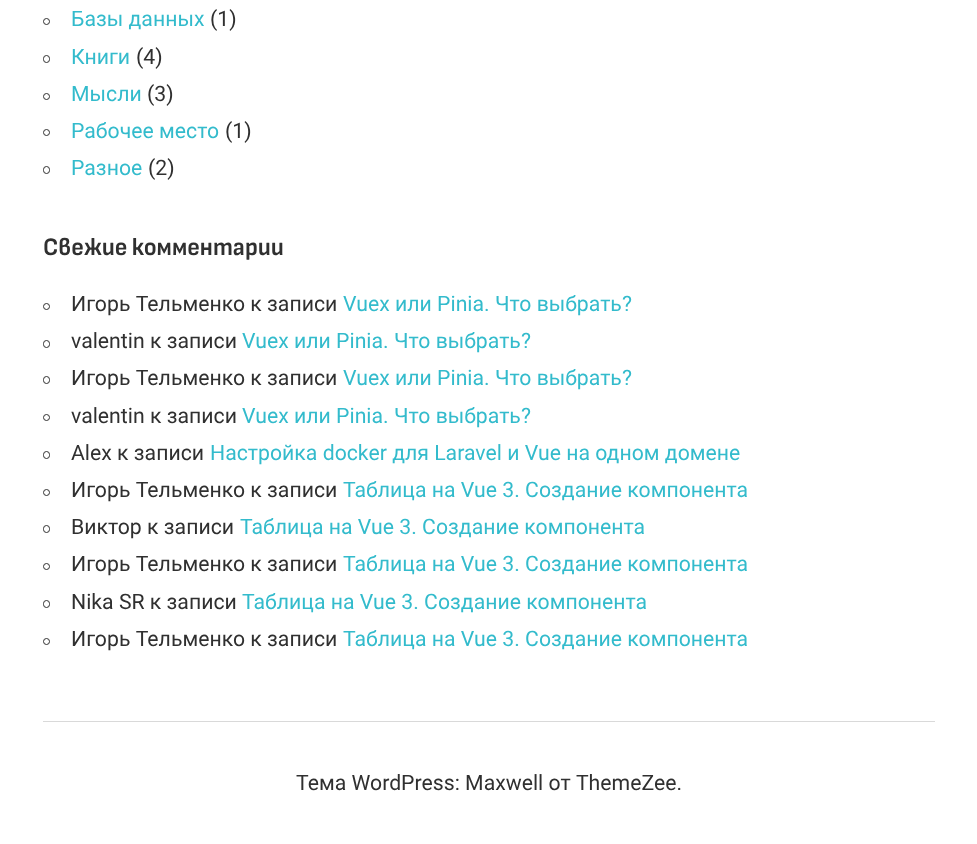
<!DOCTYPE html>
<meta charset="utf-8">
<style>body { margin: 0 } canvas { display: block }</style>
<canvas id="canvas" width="977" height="844"></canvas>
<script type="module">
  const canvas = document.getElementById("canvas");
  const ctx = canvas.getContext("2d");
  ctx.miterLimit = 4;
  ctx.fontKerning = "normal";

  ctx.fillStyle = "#ffffff";
  ctx.fillRect(0, 0, 977, 844);
  ctx.beginPath();
  ctx.arc(46.5, 21.5, 3, 0, Math.PI * 2);
  ctx.strokeStyle = "#303030";
  ctx.stroke();
  ctx.font = "21.25px Roboto";
  ctx.fillStyle = "#33bbcc";
  ctx.fillText("Базы данных", 71, 26);
  ctx.fillStyle = "#303030";
  ctx.fillText("(1)", 210, 26);
  ctx.beginPath();
  ctx.roundRect(43.5, 55.5, 6, 7, 3);
  ctx.stroke();
  ctx.fillStyle = "#33bbcc";
  ctx.fillText("Книги", 71, 64);
  ctx.fillStyle = "#303030";
  ctx.fillText("(4)", 136, 64);
  ctx.beginPath();
  ctx.arc(46.5, 96.5, 3, 0, Math.PI * 2);
  ctx.stroke();
  ctx.fillStyle = "#33bbcc";
  ctx.fillText("Мысли", 71, 101);
  ctx.fillStyle = "#303030";
  ctx.fillText("(3)", 147, 101);
  ctx.beginPath();
  ctx.arc(46.5, 132.5, 3, 0, Math.PI * 2);
  ctx.stroke();
  ctx.fillStyle = "#33bbcc";
  ctx.fillText("Рабочее место", 71, 138);
  ctx.fillStyle = "#303030";
  ctx.fillText("(1)", 225, 138);
  ctx.beginPath();
  ctx.roundRect(43.5, 166.5, 6, 7, 3);
  ctx.stroke();
  ctx.fillStyle = "#33bbcc";
  ctx.fillText("Разное", 71, 175);
  ctx.fillStyle = "#303030";
  ctx.fillText("(2)", 148, 175);
  ctx.wordSpacing = "-2px";
  ctx.font = "bold 25px Sofia Sans Semi Condensed";
  ctx.fillText("Свежие комментарии", 43, 255);
  ctx.beginPath();
  ctx.arc(46.5, 306.5, 3, 0, Math.PI * 2);
  ctx.stroke();
  ctx.wordSpacing = "0px";
  ctx.font = "21.25px Roboto";
  ctx.fillText("Игорь Тельменко к записи", 71, 311);
  ctx.fillStyle = "#33bbcc";
  ctx.fillText("Vuex или Pinia. Что выбрать?", 343, 311);
  ctx.beginPath();
  ctx.roundRect(43.5, 340.5, 6, 7, 3);
  ctx.stroke();
  ctx.fillStyle = "#303030";
  ctx.fillText("valentin к записи", 71, 348);
  ctx.fillStyle = "#33bbcc";
  ctx.fillText("Vuex или Pinia. Что выбрать?", 242, 348);
  ctx.beginPath();
  ctx.roundRect(43.5, 376.5, 6, 7, 3);
  ctx.stroke();
  ctx.fillStyle = "#303030";
  ctx.fillText("Игорь Тельменко к записи", 71, 385);
  ctx.fillStyle = "#33bbcc";
  ctx.fillText("Vuex или Pinia. Что выбрать?", 343, 385);
  ctx.beginPath();
  ctx.arc(46.5, 417.5, 3, 0, Math.PI * 2);
  ctx.stroke();
  ctx.fillStyle = "#303030";
  ctx.fillText("valentin к записи", 71, 423);
  ctx.fillStyle = "#33bbcc";
  ctx.fillText("Vuex или Pinia. Что выбрать?", 242, 423);
  ctx.beginPath();
  ctx.roundRect(43.5, 451.5, 6, 7, 3);
  ctx.stroke();
  ctx.fillStyle = "#303030";
  ctx.fillText("Alex к записи", 71, 460);
  ctx.fillStyle = "#33bbcc";
  ctx.fillText("Настройка docker для Laravel и Vue на одном домене", 210, 460);
  ctx.beginPath();
  ctx.arc(46.5, 492.5, 3, 0, Math.PI * 2);
  ctx.stroke();
  ctx.fillStyle = "#303030";
  ctx.fillText("Игорь Тельменко к записи", 71, 497);
  ctx.fillStyle = "#33bbcc";
  ctx.fillText("Таблица на Vue 3. Создание компонента", 343, 497);
  ctx.beginPath();
  ctx.roundRect(43.5, 525.5, 6, 7, 3);
  ctx.stroke();
  ctx.fillStyle = "#303030";
  ctx.fillText("Виктор к записи", 71, 534);
  ctx.fillStyle = "#33bbcc";
  ctx.fillText("Таблица на Vue 3. Создание компонента", 240, 534);
  ctx.beginPath();
  ctx.arc(46.5, 566.5, 3, 0, Math.PI * 2);
  ctx.stroke();
  ctx.fillStyle = "#303030";
  ctx.fillText("Игорь Тельменко к записи", 71, 571);
  ctx.fillStyle = "#33bbcc";
  ctx.fillText("Таблица на Vue 3. Создание компонента", 343, 571);
  ctx.beginPath();
  ctx.roundRect(43.5, 600.5, 6, 7, 3);
  ctx.stroke();
  ctx.fillStyle = "#303030";
  ctx.fillText("Nika SR к записи", 71, 609);
  ctx.fillStyle = "#33bbcc";
  ctx.fillText("Таблица на Vue 3. Создание компонента", 242, 609);
  ctx.beginPath();
  ctx.arc(46.5, 641.5, 3, 0, Math.PI * 2);
  ctx.stroke();
  ctx.fillStyle = "#303030";
  ctx.fillText("Игорь Тельменко к записи", 71, 646);
  ctx.fillStyle = "#33bbcc";
  ctx.fillText("Таблица на Vue 3. Создание компонента", 343, 646);
  ctx.fillStyle = "#d9d9d9";
  ctx.fillRect(43, 721, 892, 1);
  ctx.fillStyle = "#303030";
  ctx.fillText("Тема WordPress: Maxwell от ThemeZee.", 296, 790);
</script>
